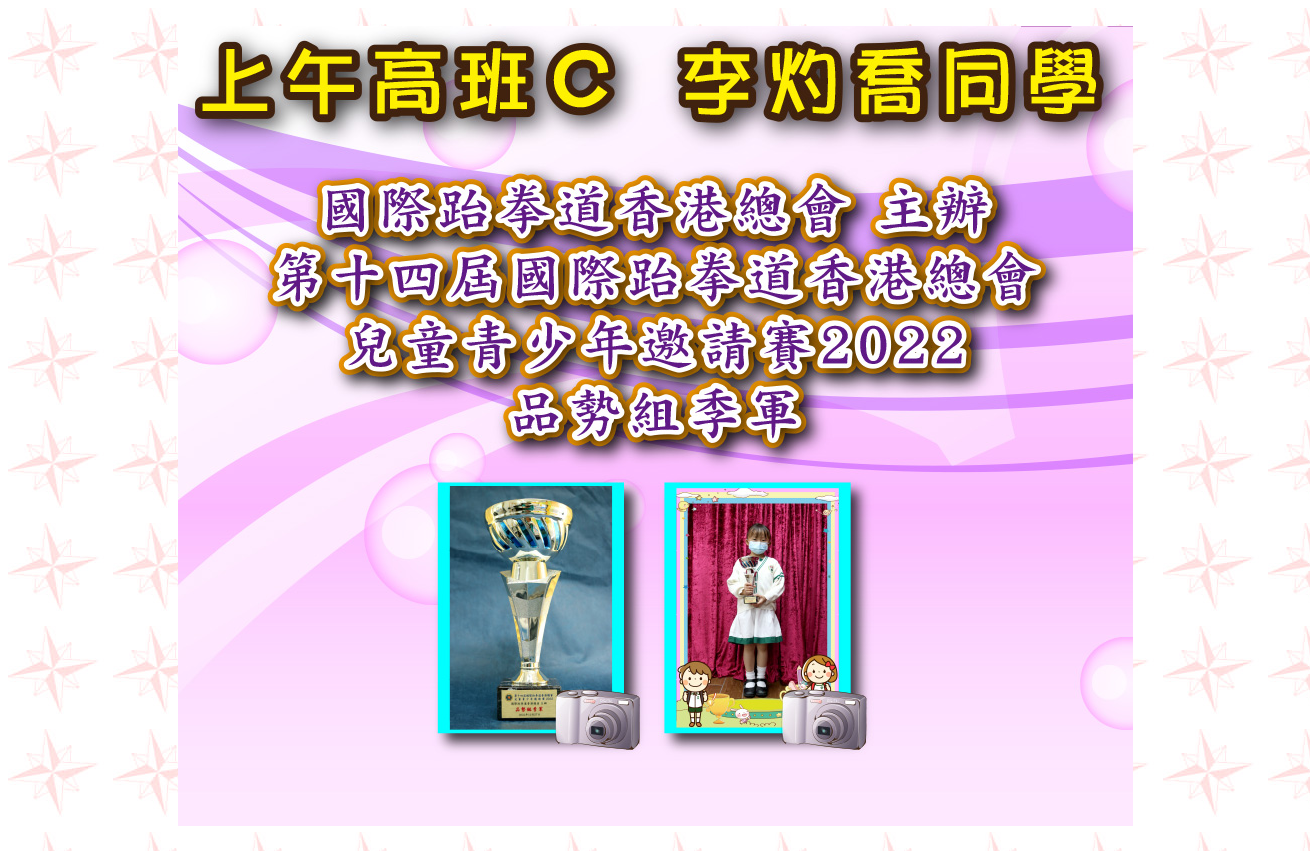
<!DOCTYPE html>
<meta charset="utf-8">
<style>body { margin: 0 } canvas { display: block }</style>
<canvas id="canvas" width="1310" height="851"></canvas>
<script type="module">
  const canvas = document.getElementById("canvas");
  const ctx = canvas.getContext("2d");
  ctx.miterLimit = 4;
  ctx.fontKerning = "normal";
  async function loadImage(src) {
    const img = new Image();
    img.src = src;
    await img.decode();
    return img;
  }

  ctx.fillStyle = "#ffffff";
  ctx.fillRect(0, 0, 1310, 851);
  ctx.drawImage(await loadImage("img1.png"), 0, 0, 1310, 851);
  ctx.drawImage(await loadImage("img2.png"), 178, 26, 955, 800);
</script>
